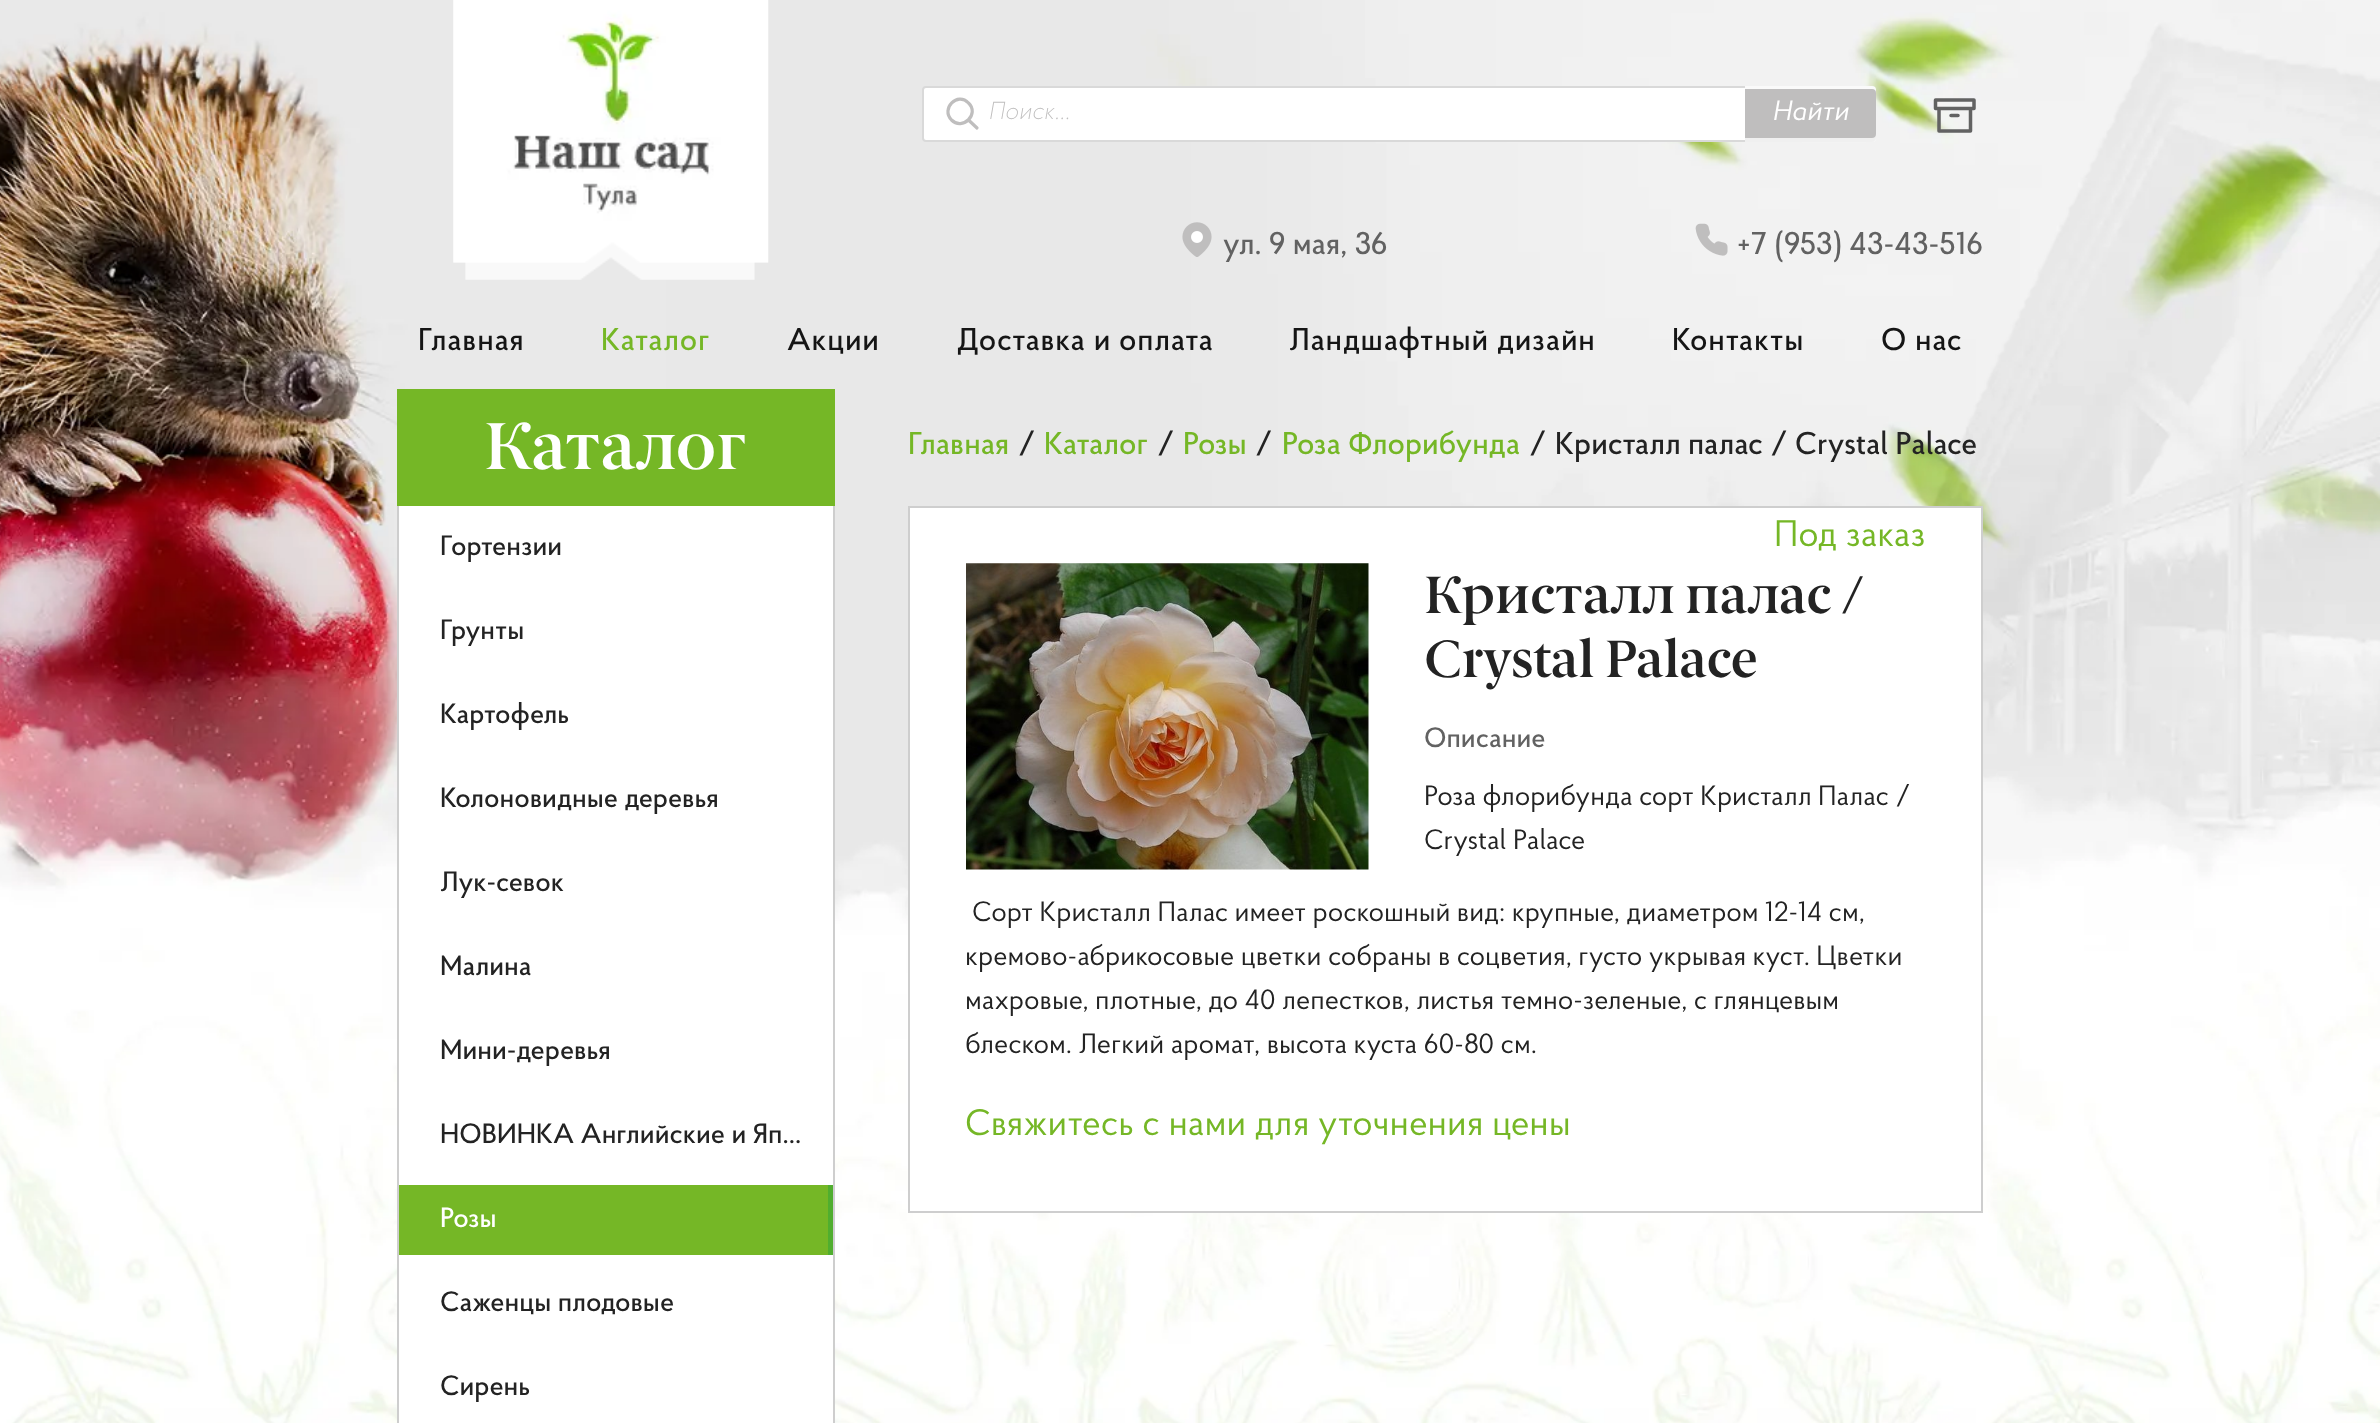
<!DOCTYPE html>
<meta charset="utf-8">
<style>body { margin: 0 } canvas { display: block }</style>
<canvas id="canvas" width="2380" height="1423"></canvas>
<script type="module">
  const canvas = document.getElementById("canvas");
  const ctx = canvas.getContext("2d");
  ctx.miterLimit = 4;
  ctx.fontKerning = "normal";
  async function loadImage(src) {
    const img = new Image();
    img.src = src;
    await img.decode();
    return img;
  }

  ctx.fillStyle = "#ffffff";
  ctx.fillRect(0, 0, 2380, 1423);
  ctx.drawImage(await loadImage("img1.png"), 0, 0, 2380, 1423);
  ctx.drawImage(await loadImage("img2.png"), 453, 0, 316, 280);
  ctx.beginPath();
  ctx.roundRect(923, 87, 823, 54, [3, 0, 0, 3]);
  ctx.fill();
  ctx.strokeStyle = "#d9d9d9";
  ctx.lineWidth = 2;
  ctx.stroke();
  ctx.beginPath();
  ctx.moveTo(977, 128);
  ctx.lineTo(968.5, 120);
  ctx.moveTo(968.5, 103);
  ctx.bezierCurveTo(980, 114, 962.5, 131, 951.5, 120);
  ctx.bezierCurveTo(940.5, 108.5, 957.5, 91.5, 968.5, 103);
  ctx.closePath();
  ctx.strokeStyle = "#bfbebe";
  ctx.lineWidth = 3.2;
  ctx.lineCap = "round";
  ctx.lineJoin = "round";
  ctx.stroke();
  ctx.font = "italic 200 24.5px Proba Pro";
  ctx.fillStyle = "#bfbebe";
  ctx.fillText("Поиск...", 988, 119);
  ctx.fillStyle = "#fafafa";
  ctx.beginPath();
  ctx.roundRect(1745, 86, 131, 56, [0, 4, 4, 0]);
  ctx.fill();
  ctx.fillStyle = "rgba(0, 0, 0, 0.04)";
  ctx.beginPath();
  ctx.moveTo(1745, 138);
  ctx.lineTo(1745, 142);
  ctx.lineTo(1872, 142);
  ctx.bezierCurveTo(1874, 142, 1876, 140, 1876, 138);
  ctx.lineTo(1876, 135);
  ctx.bezierCurveTo(1876, 137, 1874, 138, 1872, 138);
  ctx.closePath();
  ctx.fill();
  ctx.fillStyle = "#bfbebe";
  ctx.beginPath();
  ctx.roundRect(1746, 90, 129, 47, [0, 3, 3, 0]);
  ctx.fill();
  ctx.lineWidth = 2;
  ctx.lineJoin = "miter";
  ctx.stroke();
  ctx.font = "italic 28px Proba Pro";
  ctx.fillStyle = "#ffffff";
  ctx.fillText("Найти", 1772, 120);
  ctx.beginPath();
  ctx.moveTo(1970.5, 108.5);
  ctx.lineTo(1970.5, 131);
  ctx.lineTo(1939, 131);
  ctx.lineTo(1939, 108.5);
  ctx.moveTo(1951, 115.5);
  ctx.lineTo(1958, 115.5);
  ctx.moveTo(1974, 104);
  ctx.lineTo(1974, 108.5);
  ctx.lineTo(1935.5, 108.5);
  ctx.lineTo(1935.5, 104);
  ctx.moveTo(1935.5, 104);
  ctx.lineTo(1935.5, 100);
  ctx.lineTo(1974, 100);
  ctx.lineTo(1974, 104);
  ctx.strokeStyle = "#626262";
  ctx.lineWidth = 3.5;
  ctx.lineJoin = "round";
  ctx.stroke();
  ctx.drawImage(await loadImage("img3.png"), 1182, 222, 30, 35);
  ctx.font = "500 31.5px Proba Pro";
  ctx.fillStyle = "#626262";
  ctx.fillText("ул. 9 мая, 36", 1223, 254);
  ctx.drawImage(await loadImage("img4.png"), 1695, 223, 33, 33);
  ctx.fillText("+7 (953) 43-43-516", 1737, 254);
  ctx.letterSpacing = "0.75px";
  ctx.fillStyle = "#151515";
  ctx.fillText("Главная", 418, 350);
  ctx.fillStyle = "#75b726";
  ctx.fillText("Каталог", 601, 350);
  ctx.fillStyle = "#151515";
  ctx.fillText("Акции", 787, 350);
  ctx.fillText("Доставка и оплата", 957, 350);
  ctx.fillText("Ландшафтный дизайн", 1289, 350);
  ctx.fillText("Контакты", 1672, 350);
  ctx.fillText("О нас", 1881, 350);
  ctx.fillStyle = "#ffffff";
  ctx.fillRect(399, 506, 434, 917);
  ctx.fillStyle = "#75b726";
  ctx.fillRect(397, 389, 438, 117);
  ctx.letterSpacing = "0px";
  ctx.font = "600 66.5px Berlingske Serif";
  ctx.fillStyle = "#ffffff";
  ctx.fillText("Каталог", 484, 469);
  ctx.fillStyle = "#cecece";
  ctx.fillRect(833, 506, 2, 917);
  ctx.fillRect(397, 506, 2, 917);
  ctx.font = "500 28px Proba Pro";
  ctx.fillStyle = "#232323";
  ctx.fillText("Гортензии", 440, 555);
  ctx.fillText("Грунты", 440, 639);
  ctx.fillText("Картофель", 440, 723);
  ctx.fillText("Колоновидные деревья", 440, 807);
  ctx.fillText("Лук-севок", 440, 891);
  ctx.fillText("Малина", 440, 975);
  ctx.fillText("Мини-деревья", 440, 1059);
  ctx.fillText("НОВИНКА Английские и Яп…", 440, 1143);
  ctx.fillStyle = "#75b726";
  ctx.fillRect(399, 1185, 429, 70);
  ctx.fillStyle = "#ffffff";
  ctx.fillText("Розы", 440, 1227);
  ctx.fillStyle = "#50ae2f";
  ctx.fillRect(828, 1185, 5, 70);
  ctx.fillStyle = "#232323";
  ctx.fillText("Саженцы плодовые", 440, 1311);
  ctx.fillText("Сирень", 440, 1395);
  ctx.font = "500 31.5px Proba Pro";
  ctx.fillStyle = "#75b726";
  ctx.fillText("Главная", 908, 454);
  ctx.fillStyle = "#232323";
  ctx.fillText("/", 1018, 454);
  ctx.fillStyle = "#75b726";
  ctx.fillText("Каталог", 1044, 454);
  ctx.fillStyle = "#232323";
  ctx.fillText("/", 1157, 454);
  ctx.fillStyle = "#75b726";
  ctx.fillText("Розы", 1183, 454);
  ctx.fillStyle = "#232323";
  ctx.fillText("/", 1255, 454);
  ctx.fillStyle = "#75b726";
  ctx.fillText("Роза Флорибунда", 1282, 454);
  ctx.fillStyle = "#232323";
  ctx.fillText("/", 1529, 454);
  ctx.fillText("Кристалл палас / Crystal Palace", 1555, 454);
  ctx.fillStyle = "#ffffff";
  ctx.beginPath();
  ctx.rect(909, 507, 1073, 705);
  ctx.fill();
  ctx.strokeStyle = "#cecece";
  ctx.lineWidth = 2;
  ctx.lineJoin = "miter";
  ctx.stroke();
  ctx.font = "36.75px Proba Pro";
  ctx.fillStyle = "#75b726";
  ctx.fillText("Под заказ", 1774, 546);
  ctx.drawImage(await loadImage("img5.png"), 966, 563, 403, 307);
  ctx.font = "600 52.5px Berlingske Serif";
  ctx.fillStyle = "#232323";
  ctx.fillText("Кристалл палас /", 1424, 613);
  ctx.fillText("Crystal Palace", 1424, 677);
  ctx.font = "500 28px Proba Pro";
  ctx.fillStyle = "#626262";
  ctx.fillText("Описание", 1424, 747);
  ctx.font = "28px Proba Pro";
  ctx.fillStyle = "#232323";
  ctx.fillText("Роза флорибунда сорт Кристалл Палас /", 1424, 805);
  ctx.fillText("Crystal Palace", 1424, 849);
  ctx.fillText("Сорт Кристалл Палас имеет роскошный вид: крупные, диаметром 12-14 см,", 972, 921);
  ctx.fillText("кремово-абрикосовые цветки собраны в соцветия, густо укрывая куст. Цветки", 965, 965);
  ctx.fillText("махровые, плотные, до 40 лепестков, листья темно-зеленые, с глянцевым", 965, 1009);
  ctx.fillText("блеском. Легкий аромат, высота куста 60-80 см.", 965, 1053);
  ctx.font = "36.75px Proba Pro";
  ctx.fillStyle = "#75b726";
  ctx.fillText("Свяжитесь с нами для уточнения цены", 965, 1135);
</script>
